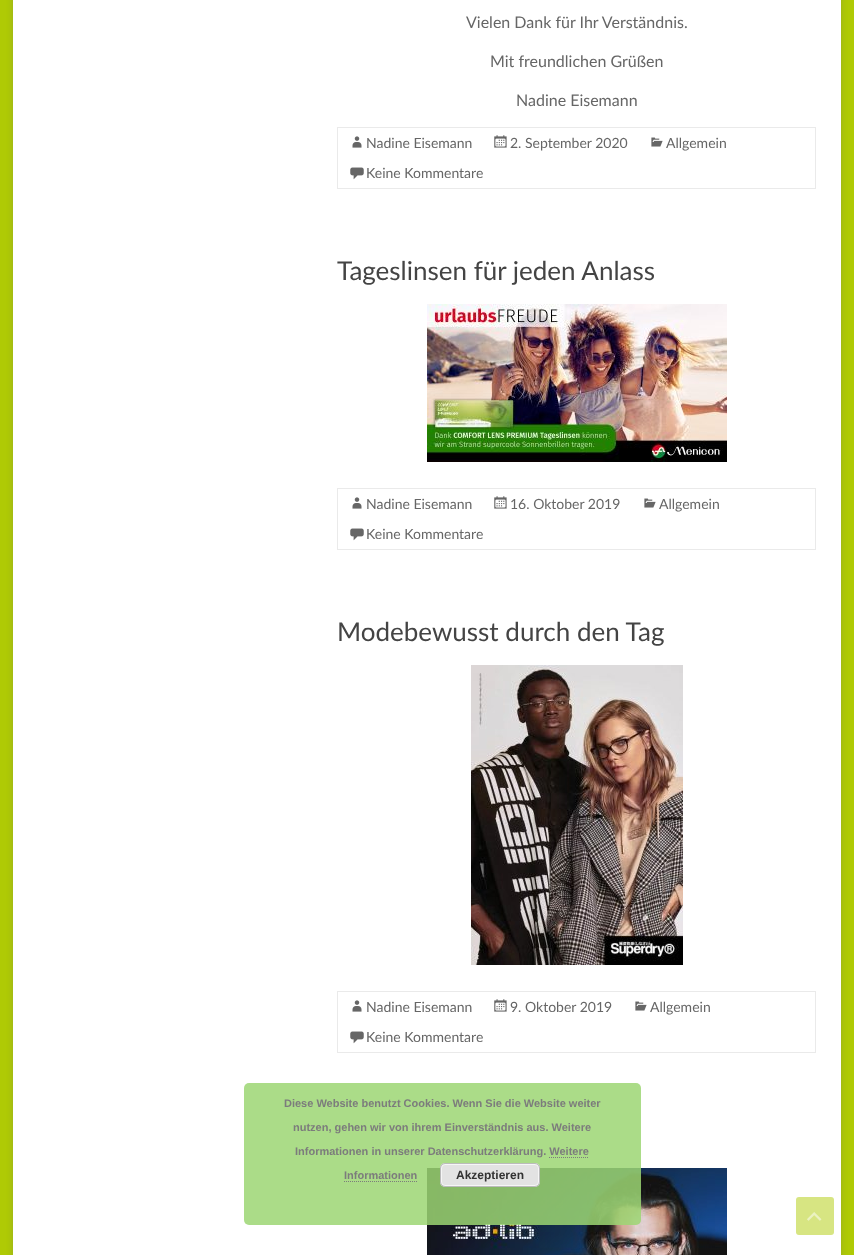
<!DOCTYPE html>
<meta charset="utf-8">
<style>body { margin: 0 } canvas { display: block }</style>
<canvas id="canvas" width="854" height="1255"></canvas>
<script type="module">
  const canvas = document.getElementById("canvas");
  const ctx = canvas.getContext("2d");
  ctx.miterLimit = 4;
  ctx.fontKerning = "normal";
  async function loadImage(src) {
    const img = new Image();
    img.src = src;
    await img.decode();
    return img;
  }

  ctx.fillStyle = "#afca05";
  ctx.fillRect(0, 0, 854, 1255);
  ctx.fillStyle = "rgba(100, 100, 100, 0.3)";
  ctx.filter = "blur(3px)";
  ctx.beginPath();
  ctx.rect(13, -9, 828, 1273);
  ctx.fill();
  ctx.filter = "none";
  ctx.fillStyle = "#ffffff";
  ctx.fillRect(13, 0, 828, 1255);
  ctx.font = "16px Lato";
  ctx.fillStyle = "#666666";
  ctx.fillText("Vielen Dank für Ihr Verständnis.", 466, 28);
  ctx.fillText("Mit freundlichen Grüßen", 490, 67);
  ctx.fillText("Nadine Eisemann", 516, 106);
  ctx.strokeStyle = "#eaeaea";
  ctx.strokeRect(337.5, 127.5, 478, 61);
  ctx.drawImage(await loadImage("img1.png"), 352, 136, 10, 12);
  ctx.font = "14px Lato";
  ctx.fillText("Nadine Eisemann", 366, 148);
  ctx.drawImage(await loadImage("img2.png"), 494, 135, 13, 13);
  ctx.fillText("2. September 2020", 510, 148);
  ctx.drawImage(await loadImage("img3.png"), 651, 137, 12, 10);
  ctx.fillText("Allgemein", 666, 148);
  ctx.drawImage(await loadImage("img4.png"), 350, 167, 14, 13);
  ctx.fillText("Keine Kommentare", 366, 178);
  ctx.font = "26px Lato";
  ctx.fillStyle = "#444444";
  ctx.fillText("Tageslinsen für jeden Anlass", 337, 280);
  ctx.drawImage(await loadImage("img5.png"), 427, 304, 300, 158);
  ctx.strokeRect(337.5, 488.5, 478, 61);
  ctx.drawImage(await loadImage("img1.png"), 352, 497, 10, 12);
  ctx.font = "14px Lato";
  ctx.fillStyle = "#666666";
  ctx.fillText("Nadine Eisemann", 366, 509);
  ctx.drawImage(await loadImage("img2.png"), 494, 496, 13, 13);
  ctx.fillText("16. Oktober 2019", 510, 509);
  ctx.drawImage(await loadImage("img3.png"), 644, 498, 12, 10);
  ctx.fillText("Allgemein", 659, 509);
  ctx.drawImage(await loadImage("img4.png"), 350, 528, 14, 13);
  ctx.fillText("Keine Kommentare", 366, 539);
  ctx.font = "26px Lato";
  ctx.fillStyle = "#444444";
  ctx.fillText("Modebewusst durch den Tag", 337, 641);
  ctx.drawImage(await loadImage("img6.png"), 471, 665, 212, 300);
  ctx.strokeRect(337.5, 991.5, 478, 61);
  ctx.drawImage(await loadImage("img1.png"), 352, 1000, 10, 12);
  ctx.font = "14px Lato";
  ctx.fillStyle = "#666666";
  ctx.fillText("Nadine Eisemann", 366, 1012);
  ctx.drawImage(await loadImage("img2.png"), 494, 999, 13, 13);
  ctx.fillText("9. Oktober 2019", 510, 1012);
  ctx.drawImage(await loadImage("img3.png"), 635, 1001, 12, 10);
  ctx.fillText("Allgemein", 650, 1012);
  ctx.drawImage(await loadImage("img4.png"), 350, 1031, 14, 13);
  ctx.fillText("Keine Kommentare", 366, 1042);
  ctx.drawImage(await loadImage("img7.png"), 427, 1168, 300, 87);
  ctx.fillStyle = "#d7e582";
  ctx.beginPath();
  ctx.roundRect(796, 1197, 38, 38, 3);
  ctx.fill();
  ctx.drawImage(await loadImage("img8.png"), 807, 1212, 15, 9);
  ctx.fillStyle = "rgba(156, 214, 115, 0.85)";
  ctx.beginPath();
  ctx.roundRect(244, 1083, 397, 142, 5);
  ctx.fill();
  ctx.font = "bold 11px Liberation Sans";
  ctx.fillStyle = "#7c7c7c";
  ctx.fillText("Diese Website benutzt Cookies. Wenn Sie die Website weiter", 284, 1107);
  ctx.fillText("nutzen, gehen wir von ihrem Einverständnis aus. Weitere", 293, 1131);
  ctx.fillText("Informationen in unserer Datenschutzerklärung. Weitere", 295, 1155);
  ctx.fillText("Informationen", 344, 1179);
  ctx.beginPath();
  ctx.moveTo(549, 1157.5);
  ctx.lineTo(589, 1157.5);
  ctx.strokeStyle = "#7c7c7c";
  ctx.setLineDash([1, 1]);
  ctx.stroke();
  ctx.beginPath();
  ctx.moveTo(344, 1181.5);
  ctx.lineTo(417, 1181.5);
  ctx.stroke();
  ctx.fillStyle = "#e3e3e3";
  ctx.beginPath();
  ctx.roundRect(440, 1163, 100, 24, 5);
  ctx.fill();
  ctx.beginPath();
  ctx.roundRect(441.5, 1164.5, 97, 21, 3.5);
  ctx.strokeStyle = "#f6f6f6";
  ctx.setLineDash([]);
  ctx.stroke();
  ctx.beginPath();
  ctx.roundRect(440.5, 1163.5, 99, 23, 4.5);
  ctx.strokeStyle = "#bbbbbb";
  ctx.stroke();
  ctx.font = "bold 12px Liberation Sans";
  ctx.fillStyle = "#333333";
  ctx.fillText("Akzeptieren", 456, 1179);
</script>
